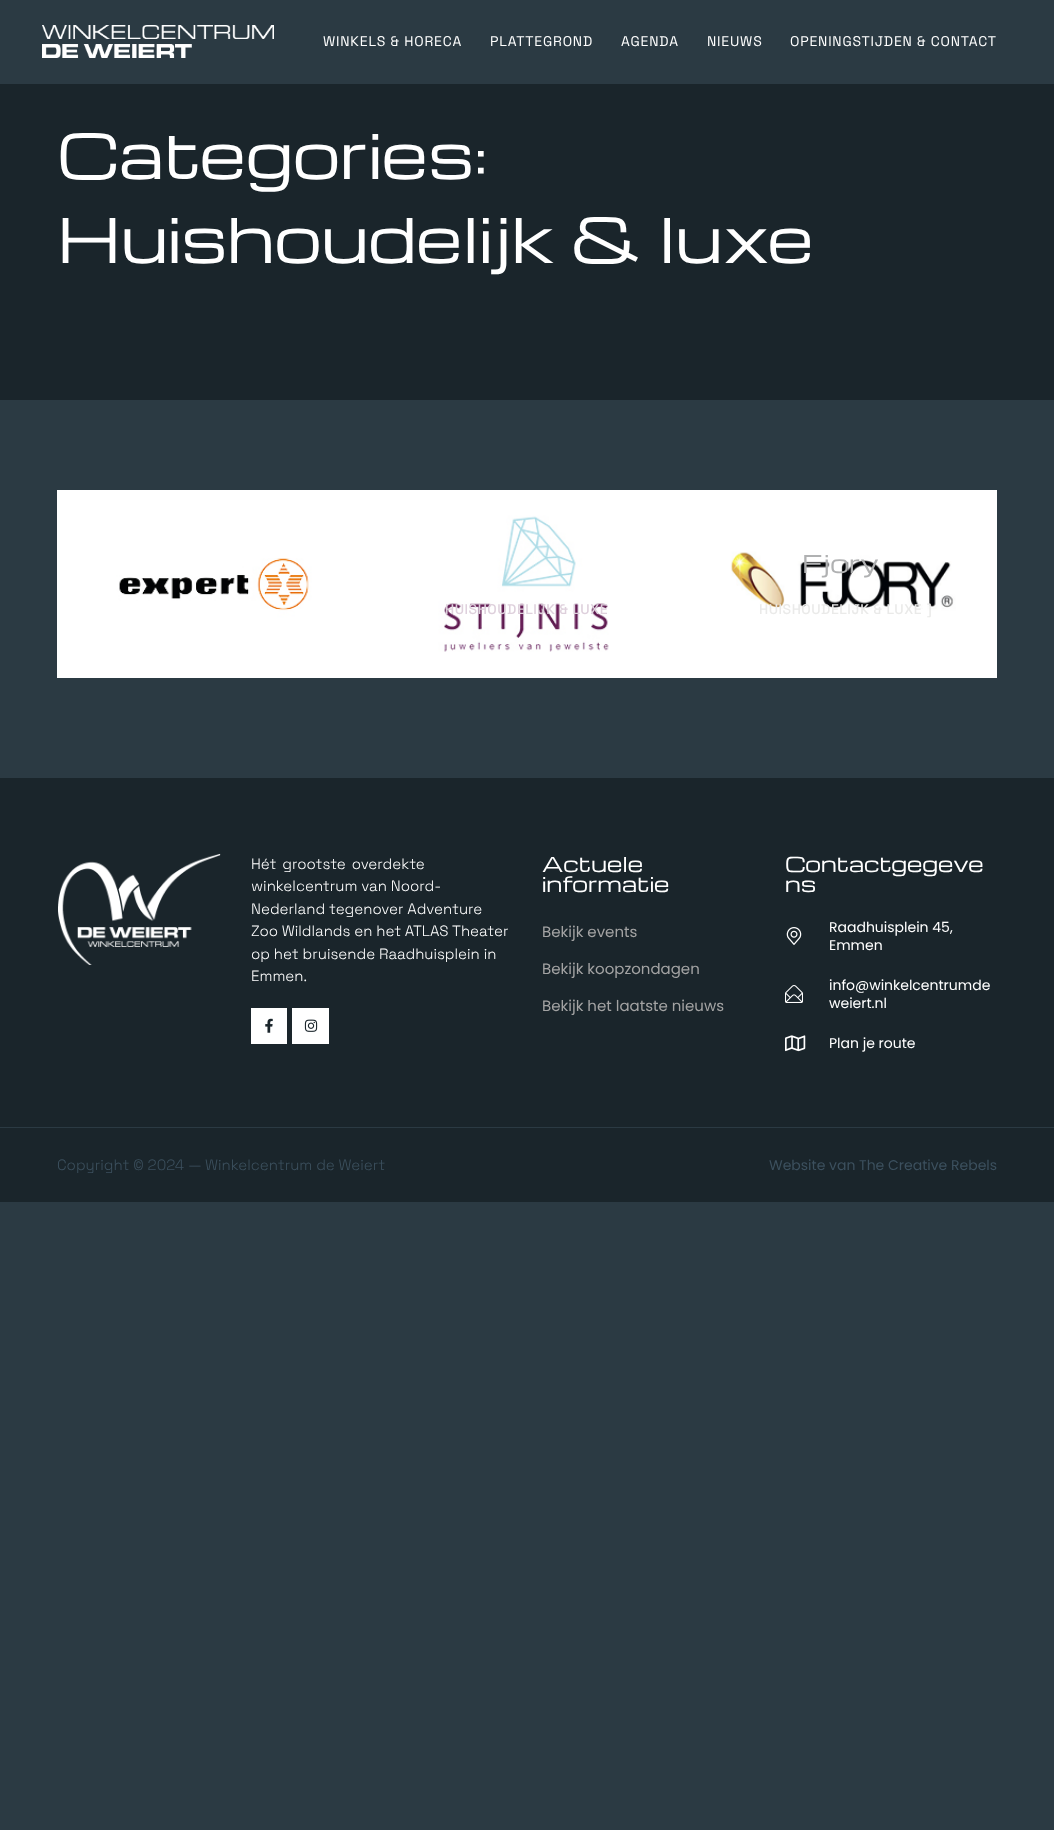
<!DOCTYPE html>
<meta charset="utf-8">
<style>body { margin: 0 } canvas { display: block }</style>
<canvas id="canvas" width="1054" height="1830"></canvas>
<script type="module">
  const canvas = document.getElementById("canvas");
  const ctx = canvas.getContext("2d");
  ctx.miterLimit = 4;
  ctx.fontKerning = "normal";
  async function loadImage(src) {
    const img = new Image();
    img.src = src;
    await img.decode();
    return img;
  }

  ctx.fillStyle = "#2b3a43";
  ctx.fillRect(0, 0, 1054, 1830);
  ctx.drawImage(await loadImage("img1.png"), 42, 25, 232, 33);
  ctx.letterSpacing = "0.8px";
  ctx.font = "14px Space Grotesk";
  ctx.fillStyle = "#ffffff";
  ctx.fillText("WINKELS & HORECA", 323, 46);
  ctx.fillText("PLATTEGROND", 490, 46);
  ctx.fillText("AGENDA", 621, 46);
  ctx.fillText("NIEUWS", 707, 46);
  ctx.fillText("OPENINGSTIJDEN & CONTACT", 790, 46);
  ctx.fillStyle = "#1a252b";
  ctx.fillRect(0, 84, 1054, 316);
  ctx.letterSpacing = "0px";
  ctx.font = "60px Michroma";
  ctx.fillStyle = "#ffffff";
  ctx.fillText("Categories:", 57, 179);
  ctx.fillText("Huishoudelijk & luxe", 57, 263);
  ctx.drawImage(await loadImage("img2.png"), 57, 490, 313, 188);
  ctx.drawImage(await loadImage("img3.png"), 370, 490, 314, 188);
  ctx.letterSpacing = "0.5px";
  ctx.font = "500 14px Space Grotesk";
  ctx.fillStyle = "#ded0dc";
  ctx.fillText("HUISHOUDELIJK & LUXE", 445, 614);
  ctx.drawImage(await loadImage("img4.png"), 684, 490, 313, 188);
  ctx.letterSpacing = "0px";
  ctx.font = "24px Michroma";
  ctx.fillStyle = "#b0b1b2";
  ctx.fillText("Fjory", 802, 573);
  ctx.letterSpacing = "0.5px";
  ctx.font = "500 14px Space Grotesk";
  ctx.fillStyle = "#eaeae9";
  ctx.fillText("HUISHOUDELIJK & LUXE", 759, 614);
  ctx.fillText("]", 927, 614);
  ctx.fillStyle = "#1a252b";
  ctx.fillRect(0, 778, 1054, 349);
  ctx.drawImage(await loadImage("img5.png"), 58, 853, 163, 112);
  ctx.letterSpacing = "0px";
  ctx.wordSpacing = "2px";
  ctx.font = "300 15px Space Grotesk";
  ctx.fillStyle = "#ffffff";
  ctx.fillText("Hét grootste overdekte", 251, 869);
  ctx.wordSpacing = "0px";
  ctx.fillText("winkelcentrum van Noord-", 251, 891);
  ctx.fillText("Nederland tegenover Adventure", 251, 914);
  ctx.fillText("Zoo Wildlands en het ATLAS Theater", 251, 936);
  ctx.fillText("op het bruisende Raadhuisplein in", 251, 959);
  ctx.fillText("Emmen.", 251, 981);
  ctx.fillRect(251, 1008, 36, 36);
  ctx.drawImage(await loadImage("img6.png"), 265, 1018, 8, 15);
  ctx.fillRect(292, 1008, 37, 36);
  ctx.drawImage(await loadImage("img7.png"), 304, 1019, 14, 13);
  ctx.font = "20px Michroma";
  ctx.fillText("Actuele", 542, 872);
  ctx.fillText("informatie", 542, 892);
  ctx.font = "15px Poppins";
  ctx.fillStyle = "#a3a3a3";
  ctx.fillText("Bekijk events", 542, 937);
  ctx.fillText("Bekijk koopzondagen", 542, 974);
  ctx.fillText("Bekijk het laatste nieuws", 542, 1011);
  ctx.font = "20px Michroma";
  ctx.fillStyle = "#ffffff";
  ctx.fillText("Contactgegeve", 785, 872);
  ctx.fillText("ns", 785, 892);
  ctx.drawImage(await loadImage("img8.png"), 786, 927, 16, 18);
  ctx.font = "14px Poppins";
  ctx.fillText("Raadhuisplein 45,", 829, 932);
  ctx.fillText("Emmen", 829, 950);
  ctx.drawImage(await loadImage("img9.png"), 785, 985, 18, 18);
  ctx.fillText("info@winkelcentrumde", 829, 990);
  ctx.fillText("weiert.nl", 829, 1008);
  ctx.drawImage(await loadImage("img10.png"), 785, 1035, 21, 17);
  ctx.fillText("Plan je route", 829, 1048);
  ctx.fillStyle = "#1a252b";
  ctx.fillRect(0, 1128, 1054, 74);
  ctx.font = "300 15px Space Grotesk";
  ctx.fillStyle = "#3c505e";
  ctx.fillText("Copyright © 2024", 57, 1170);
  ctx.fillText("—", 188, 1170);
  ctx.fillText("Winkelcentrum de Weiert", 205, 1170);
  ctx.font = "14px Poppins";
  ctx.fillText("Website van The Creative Rebels", 769, 1170);
</script>
